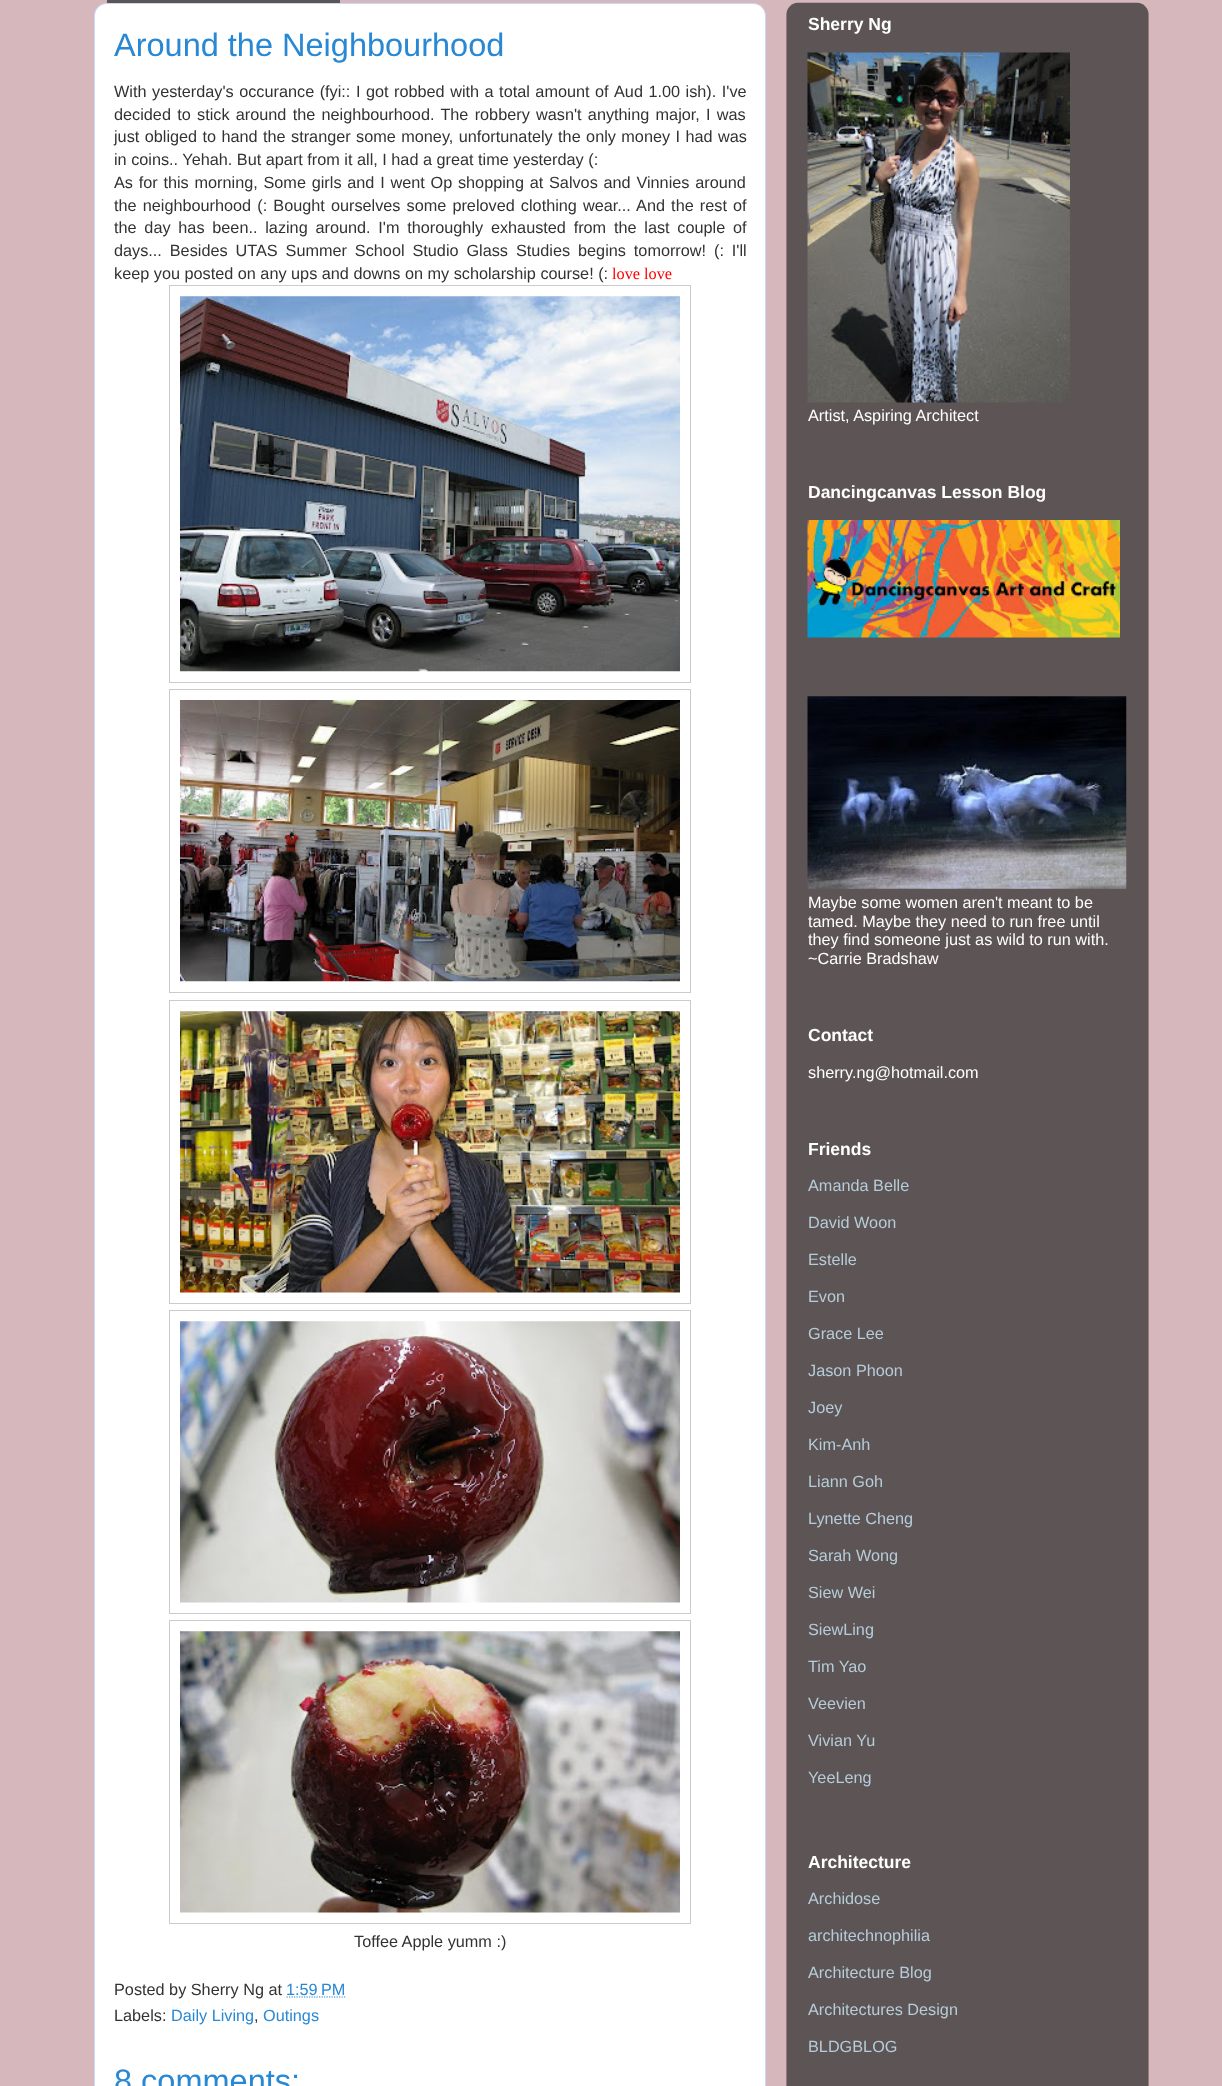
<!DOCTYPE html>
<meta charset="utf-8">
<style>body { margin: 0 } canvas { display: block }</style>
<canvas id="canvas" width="1222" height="2086"></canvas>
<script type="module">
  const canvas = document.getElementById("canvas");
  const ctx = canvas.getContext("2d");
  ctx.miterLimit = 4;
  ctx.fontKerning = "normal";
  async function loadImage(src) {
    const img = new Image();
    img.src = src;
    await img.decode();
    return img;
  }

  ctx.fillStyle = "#d5b7bc";
  ctx.fillRect(0, 0, 1222, 2086);
  ctx.fillStyle = "#ffffff";
  ctx.beginPath();
  ctx.moveTo(107, 3.5);
  ctx.lineTo(753, 3.5);
  ctx.bezierCurveTo(760, 3.5, 765.5, 9, 765.5, 16);
  ctx.lineTo(765.5, 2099.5);
  ctx.lineTo(94.5, 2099.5);
  ctx.lineTo(94.5, 16);
  ctx.bezierCurveTo(94.5, 9, 100, 3.5, 107, 3.5);
  ctx.closePath();
  ctx.fill();
  ctx.strokeStyle = "#cbd8f3";
  ctx.stroke();
  ctx.fillStyle = "#5c5455";
  ctx.fillRect(107, 0, 233, 3);
  ctx.font = "32.5px Liberation Sans";
  ctx.fillStyle = "#2988d4";
  ctx.fillText("Around the Neighbourhood", 114, 56);
  ctx.wordSpacing = "1px";
  ctx.font = "16.25px Liberation Sans";
  ctx.fillStyle = "#323232";
  ctx.fillText("With yesterday's occurance (fyi:: I got robbed with a total amount of", 114, 97);
  ctx.fillText("Aud 1.00 ish). I've", 614, 97);
  ctx.wordSpacing = "1.75px";
  ctx.fillText("decided to stick around the neighbourhood. The robbery wasn't anything major, I was", 114, 120);
  ctx.wordSpacing = "0.9px";
  ctx.fillText("just obliged to hand the stranger some money, unfortunately the only money I had was", 114, 142);
  ctx.wordSpacing = "0px";
  ctx.fillText("in coins.. Yehah. But apart from it all, I had a great time yesterday (:", 114, 165);
  ctx.wordSpacing = "1.25px";
  ctx.fillText("As for this morning, Some girls and I went Op shopping at Salvos and Vinnies around", 114, 188);
  ctx.wordSpacing = "1.6px";
  ctx.fillText("the neighbourhood (: Bought ourselves some preloved clothing wear... And the rest of", 114, 211);
  ctx.wordSpacing = "3.25px";
  ctx.fillText("the day has been.. lazing around. I'm thoroughly exhausted from the last couple of", 114, 233);
  ctx.wordSpacing = "3.4px";
  ctx.fillText("days... Besides UTAS Summer School Studio Glass Studies begins tomorrow! (: I'll", 114, 256);
  ctx.wordSpacing = "0px";
  ctx.fillText("keep you posted on any ups and downs on my scholarship course! (:", 114, 279);
  ctx.font = "16.25px Liberation Serif";
  ctx.fillStyle = "#ff0000";
  ctx.fillText("love love", 612, 279);
  ctx.strokeStyle = "#cbcbcb";
  ctx.strokeRect(169.5, 285.5, 521, 397);
  ctx.drawImage(await loadImage("img1.png"), 180, 296, 500, 376);
  ctx.strokeRect(169.5, 689.5, 521, 303);
  ctx.drawImage(await loadImage("img2.png"), 180, 700, 500, 282);
  ctx.strokeRect(169.5, 1000.5, 521, 303);
  ctx.drawImage(await loadImage("img3.png"), 180, 1011, 500, 282);
  ctx.strokeRect(169.5, 1310.5, 521, 303);
  ctx.drawImage(await loadImage("img4.png"), 180, 1321, 500, 282);
  ctx.strokeRect(169.5, 1620.5, 521, 303);
  ctx.drawImage(await loadImage("img5.png"), 180, 1631, 500, 282);
  ctx.font = "16.25px Liberation Sans";
  ctx.fillStyle = "#323232";
  ctx.fillText("Toffee Apple yumm :)", 354, 1947);
  ctx.fillText("Posted by Sherry Ng at", 114, 1995);
  ctx.fillStyle = "#2988d4";
  ctx.fillText("1:59 PM", 286, 1995);
  ctx.beginPath();
  ctx.moveTo(286.5, 1997);
  ctx.lineTo(345.5, 1997);
  ctx.strokeStyle = "#2988d4";
  ctx.lineWidth = 1.2;
  ctx.setLineDash([1.25, 1.25]);
  ctx.stroke();
  ctx.fillStyle = "#323232";
  ctx.fillText("Labels:", 114, 2021);
  ctx.fillStyle = "#2988d4";
  ctx.fillText("Daily Living", 171, 2021);
  ctx.fillStyle = "#323232";
  ctx.fillText(",", 254, 2021);
  ctx.fillStyle = "#2988d4";
  ctx.fillText("Outings", 263, 2021);
  ctx.font = "32.5px Liberation Sans";
  ctx.fillText("8 comments:", 114, 2092);
  ctx.drawImage(await loadImage("img6.png"), 786, 2, 363, 2084);
  ctx.font = "bold 17.5px Liberation Sans";
  ctx.fillStyle = "#ffffff";
  ctx.fillText("Sherry Ng", 808, 30);
  ctx.drawImage(await loadImage("img7.png"), 807, 52, 263, 351);
  ctx.font = "16.25px Liberation Sans";
  ctx.fillText("Artist, Aspiring Architect", 808, 421);
  ctx.font = "bold 17.5px Liberation Sans";
  ctx.fillText("Dancingcanvas Lesson Blog", 808, 498);
  ctx.drawImage(await loadImage("img8.png"), 807, 520, 313, 118);
  ctx.drawImage(await loadImage("img9.png"), 807, 696, 320, 193);
  ctx.font = "16.25px Liberation Sans";
  ctx.fillText("Maybe some women aren't meant to be", 808, 908);
  ctx.fillText("tamed. Maybe they need to run free until", 808, 927);
  ctx.fillText("they find someone just as wild to run with.", 808, 945);
  ctx.fillText("~Carrie Bradshaw", 808, 964);
  ctx.font = "bold 17.5px Liberation Sans";
  ctx.fillText("Contact", 808, 1041);
  ctx.font = "16.25px Liberation Sans";
  ctx.fillText("sherry.ng@hotmail.com", 808, 1078);
  ctx.font = "bold 17.5px Liberation Sans";
  ctx.fillText("Friends", 808, 1155);
  ctx.font = "16.25px Liberation Sans";
  ctx.fillStyle = "#b6cdd9";
  ctx.fillText("Amanda Belle", 808, 1191);
  ctx.fillText("David Woon", 808, 1228);
  ctx.fillText("Estelle", 808, 1265);
  ctx.fillText("Evon", 808, 1302);
  ctx.fillText("Grace Lee", 808, 1339);
  ctx.fillText("Jason Phoon", 808, 1376);
  ctx.fillText("Joey", 808, 1413);
  ctx.fillText("Kim-Anh", 808, 1450);
  ctx.fillText("Liann Goh", 808, 1487);
  ctx.fillText("Lynette Cheng", 808, 1524);
  ctx.fillText("Sarah Wong", 808, 1561);
  ctx.fillText("Siew Wei", 808, 1598);
  ctx.fillText("SiewLing", 808, 1635);
  ctx.fillText("Tim Yao", 808, 1672);
  ctx.fillText("Veevien", 808, 1709);
  ctx.fillText("Vivian Yu", 808, 1746);
  ctx.fillText("YeeLeng", 808, 1783);
  ctx.font = "bold 17.5px Liberation Sans";
  ctx.fillStyle = "#ffffff";
  ctx.fillText("Architecture", 808, 1868);
  ctx.font = "16.25px Liberation Sans";
  ctx.fillStyle = "#b6cdd9";
  ctx.fillText("Archidose", 808, 1904);
  ctx.fillText("architechnophilia", 808, 1941);
  ctx.fillText("Architecture Blog", 808, 1978);
  ctx.fillText("Architectures Design", 808, 2015);
  ctx.fillText("BLDGBLOG", 808, 2052);
</script>
